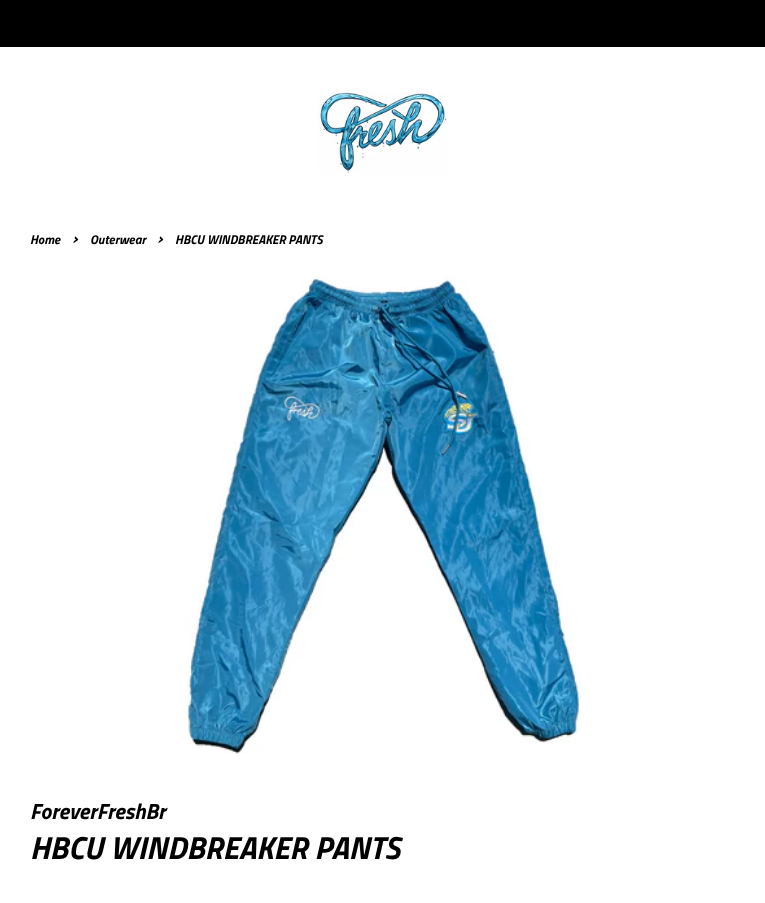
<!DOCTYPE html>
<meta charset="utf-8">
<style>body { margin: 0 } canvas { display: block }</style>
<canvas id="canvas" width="765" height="903"></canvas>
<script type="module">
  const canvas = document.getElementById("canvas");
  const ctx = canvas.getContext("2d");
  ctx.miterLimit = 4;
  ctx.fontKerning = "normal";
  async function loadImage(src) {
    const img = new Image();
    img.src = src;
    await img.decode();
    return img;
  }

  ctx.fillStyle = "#ffffff";
  ctx.fillRect(0, 0, 765, 903);
  ctx.fillStyle = "#000000";
  ctx.fillRect(0, 0, 765, 47);
  ctx.drawImage(await loadImage("img1.png"), 318, 92, 130, 82);
  ctx.font = "italic bold 12.75px Titillium Web";
  ctx.fillText("Home", 30, 244);
  ctx.font = "italic bold 18px Titillium Web";
  ctx.fillText("›", 73, 244);
  ctx.font = "italic bold 12.75px Titillium Web";
  ctx.fillText("Outerwear", 90, 244);
  ctx.font = "italic bold 18px Titillium Web";
  ctx.fillText("›", 158, 244);
  ctx.font = "italic bold 12.75px Titillium Web";
  ctx.fillText("HBCU WINDBREAKER PANTS", 175, 244);
  ctx.drawImage(await loadImage("img2.png"), 184, 276, 398, 478);
  ctx.font = "italic bold 22px Titillium Web";
  ctx.fillText("ForeverFreshBr", 30, 819);
  ctx.font = "italic bold 32px Titillium Web";
  ctx.fillText("HBCU WINDBREAKER PANTS", 30, 859);
</script>
